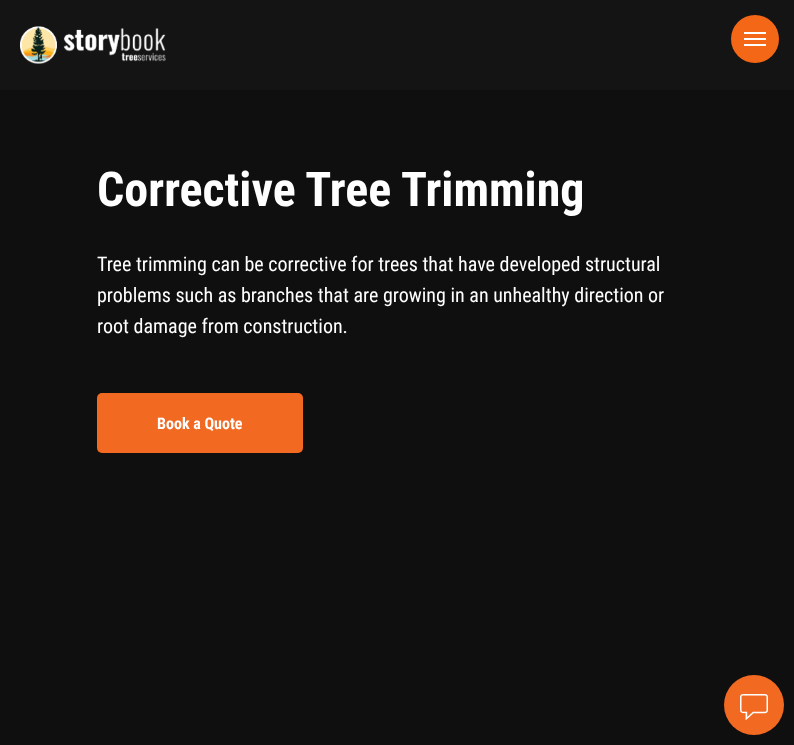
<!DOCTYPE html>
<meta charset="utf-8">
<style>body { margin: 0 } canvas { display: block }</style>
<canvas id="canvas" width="794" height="745"></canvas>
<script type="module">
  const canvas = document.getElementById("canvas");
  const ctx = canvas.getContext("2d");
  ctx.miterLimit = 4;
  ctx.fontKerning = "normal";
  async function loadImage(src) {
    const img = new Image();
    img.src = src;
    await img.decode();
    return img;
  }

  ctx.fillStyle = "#0f0f0f";
  ctx.fillRect(0, 0, 794, 745);
  ctx.fillStyle = "#141414";
  ctx.fillRect(0, 0, 794, 90);
  ctx.drawImage(await loadImage("img1.png"), 20, 26, 146, 38);
  ctx.fillStyle = "#f46717";
  ctx.beginPath();
  ctx.arc(755, 39, 24, 0, Math.PI * 2);
  ctx.fill();
  ctx.fillStyle = "#ffffff";
  ctx.fillRect(744, 32, 22, 2);
  ctx.fillRect(744, 38, 22, 2);
  ctx.fillRect(744, 44, 22, 2);
  ctx.font = "bold 48px Roboto Condensed";
  ctx.fillText("Corrective Tree Trimming", 97, 206);
  ctx.font = "20px Roboto Condensed";
  ctx.fillText("Tree trimming can be corrective for trees that have developed structural", 97, 271);
  ctx.fillText("problems such as branches that are growing in an unhealthy direction or", 97, 302);
  ctx.fillText("root damage from construction.", 97, 333);
  ctx.fillStyle = "#f26922";
  ctx.beginPath();
  ctx.roundRect(97, 393, 206, 60, 5);
  ctx.fill();
  ctx.font = "bold 16px Roboto Condensed";
  ctx.fillStyle = "#ffffff";
  ctx.fillText("Book a Quote", 157, 429);
  ctx.fillStyle = "#f26922";
  ctx.beginPath();
  ctx.arc(754, 705, 30, 0, Math.PI * 2);
  ctx.fill();
  ctx.drawImage(await loadImage("img2.png"), 740, 694, 28, 27);
</script>
